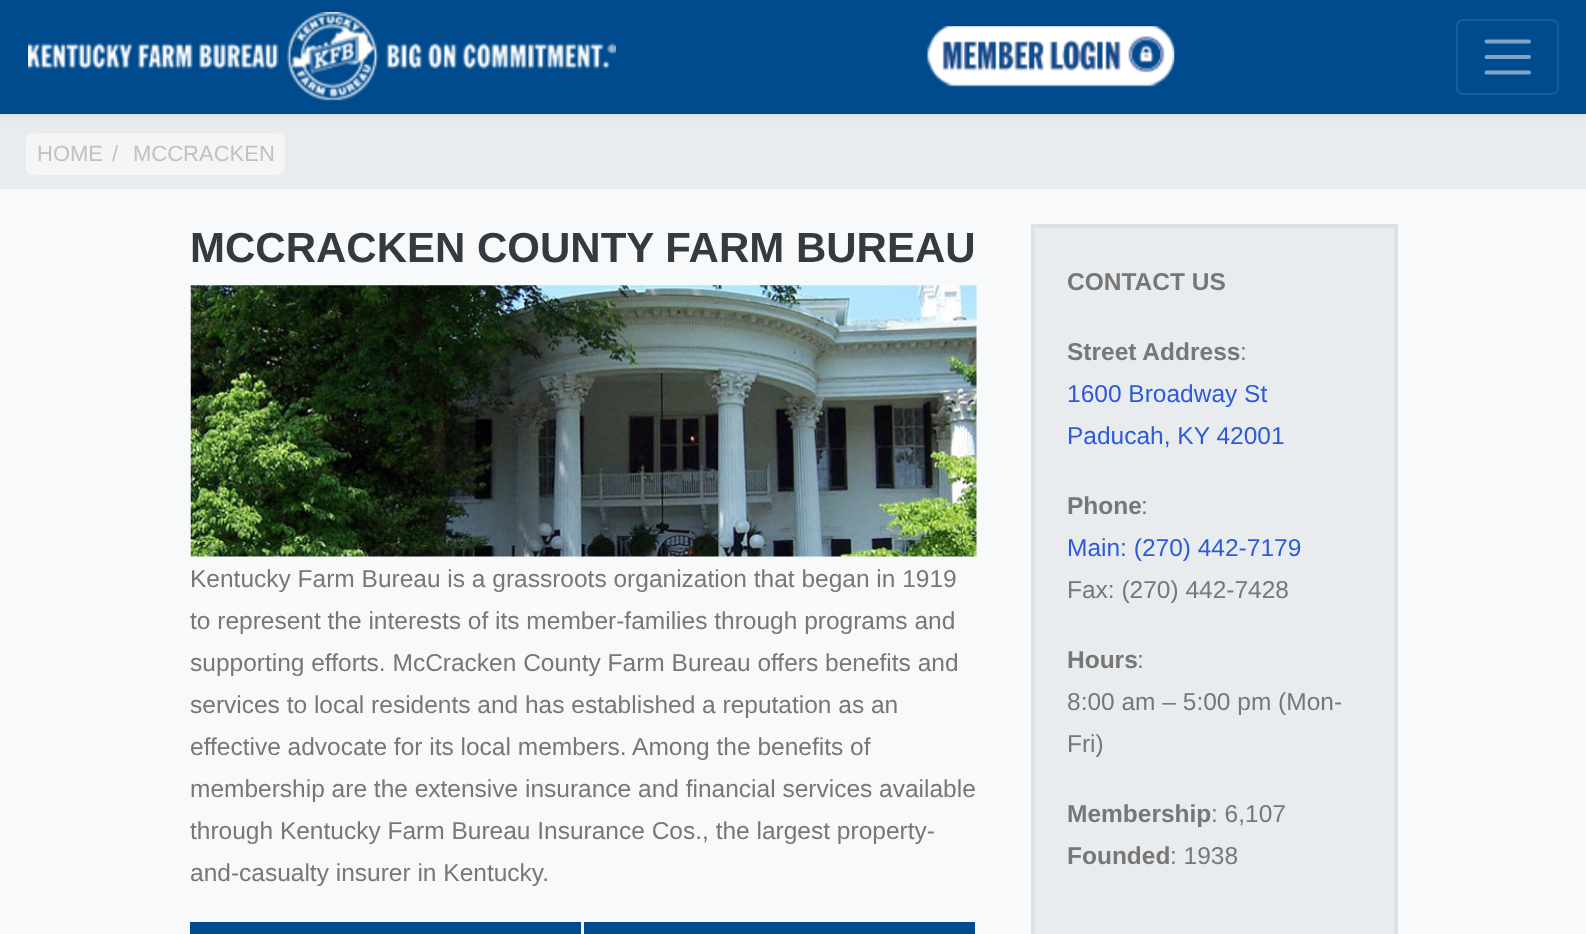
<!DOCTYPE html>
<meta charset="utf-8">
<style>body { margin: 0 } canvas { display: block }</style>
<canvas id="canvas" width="1586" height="934"></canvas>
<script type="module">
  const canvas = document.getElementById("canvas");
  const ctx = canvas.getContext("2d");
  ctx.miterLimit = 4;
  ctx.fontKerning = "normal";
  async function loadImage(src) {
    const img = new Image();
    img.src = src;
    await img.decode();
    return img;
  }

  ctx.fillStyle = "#f8f9fa";
  ctx.fillRect(0, 0, 1586, 934);
  ctx.fillStyle = "#e9ecef";
  ctx.fillRect(0, 114, 1586, 75);
  ctx.fillStyle = "rgba(52, 58, 64, 0.07)";
  ctx.filter = "blur(3.5px)";
  ctx.beginPath();
  ctx.rect(0, 4, 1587, 113);
  ctx.fill();
  ctx.filter = "none";
  ctx.fillStyle = "#004b8d";
  ctx.fillRect(0, 0, 1586, 114);
  ctx.drawImage(await loadImage("img1.png"), 28, 12, 588, 89);
  ctx.drawImage(await loadImage("img2.png"), 927, 26, 248, 61);
  ctx.beginPath();
  ctx.roundRect(1457, 20, 101, 74, 6);
  ctx.strokeStyle = "#1a5d98";
  ctx.lineWidth = 2;
  ctx.stroke();
  ctx.beginPath();
  ctx.moveTo(1486.5, 41.5);
  ctx.lineTo(1529, 41.5);
  ctx.moveTo(1486.5, 57);
  ctx.lineTo(1529, 57);
  ctx.moveTo(1486.5, 72.5);
  ctx.lineTo(1529, 72.5);
  ctx.strokeStyle = "#80a5c6";
  ctx.lineWidth = 3.9;
  ctx.lineCap = "round";
  ctx.stroke();
  ctx.fillStyle = "#f5f5f5";
  ctx.beginPath();
  ctx.roundRect(26, 133, 259, 42, 7);
  ctx.fill();
  ctx.font = "22px Liberation Sans";
  ctx.fillStyle = "#c2c0c0";
  ctx.fillText("HOME", 37, 161);
  ctx.fillText("/", 112, 161);
  ctx.fillText("MCCRACKEN", 133, 161);
  ctx.font = "bold 42px Liberation Sans";
  ctx.fillStyle = "#343a40";
  ctx.fillText("MCCRACKEN COUNTY FARM BUREAU", 190, 262);
  ctx.drawImage(await loadImage("img3.png"), 190, 285, 787, 272);
  ctx.font = "24.5px Liberation Sans";
  ctx.fillStyle = "#777777";
  ctx.fillText("Kentucky Farm Bureau is a grassroots organization that began in 1919", 190, 587);
  ctx.fillText("to represent the interests of its member-families through programs and", 190, 629);
  ctx.fillText("supporting efforts. McCracken County Farm Bureau offers benefits and", 190, 671);
  ctx.fillText("services to local residents and has established a reputation as an", 190, 713);
  ctx.fillText("effective advocate for its local members. Among the benefits of", 190, 755);
  ctx.fillText("membership are the extensive insurance and financial services available", 190, 797);
  ctx.fillText("through Kentucky Farm Bureau Insurance Cos., the largest property-", 190, 839);
  ctx.fillText("and-casualty insurer in Kentucky.", 190, 881);
  ctx.fillStyle = "#004b8d";
  ctx.fillRect(190, 922, 391, 12);
  ctx.fillRect(584, 922, 391, 12);
  ctx.fillStyle = "#e9ecef";
  ctx.beginPath();
  ctx.rect(1033, 226, 363, 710);
  ctx.fill();
  ctx.strokeStyle = "#dee2e6";
  ctx.lineWidth = 4;
  ctx.stroke();
  ctx.font = "bold 24.5px Liberation Sans";
  ctx.fillStyle = "#777777";
  ctx.fillText("CONTACT US", 1067, 290);
  ctx.fillText("Street Address", 1067, 360);
  ctx.font = "24.5px Liberation Sans";
  ctx.fillText(":", 1240, 360);
  ctx.fillStyle = "#2e5ad9";
  ctx.fillText("1600 Broadway St", 1067, 402);
  ctx.fillText("Paducah, KY 42001", 1067, 444);
  ctx.font = "bold 24.5px Liberation Sans";
  ctx.fillStyle = "#777777";
  ctx.fillText("Phone", 1067, 514);
  ctx.font = "24.5px Liberation Sans";
  ctx.fillText(":", 1141, 514);
  ctx.fillStyle = "#2e5ad9";
  ctx.fillText("Main: (270) 442-7179", 1067, 556);
  ctx.fillStyle = "#777777";
  ctx.fillText("Fax: (270) 442-7428", 1067, 598);
  ctx.font = "bold 24.5px Liberation Sans";
  ctx.fillText("Hours", 1067, 668);
  ctx.font = "24.5px Liberation Sans";
  ctx.fillText(":", 1137, 668);
  ctx.fillText("8:00 am – 5:00 pm (Mon-", 1067, 710);
  ctx.fillText("Fri)", 1067, 752);
  ctx.font = "bold 24.5px Liberation Sans";
  ctx.fillText("Membership", 1067, 822);
  ctx.font = "24.5px Liberation Sans";
  ctx.fillText(": 6,107", 1211, 822);
  ctx.font = "bold 24.5px Liberation Sans";
  ctx.fillText("Founded", 1067, 864);
  ctx.font = "24.5px Liberation Sans";
  ctx.fillText(": 1938", 1170, 864);
</script>
